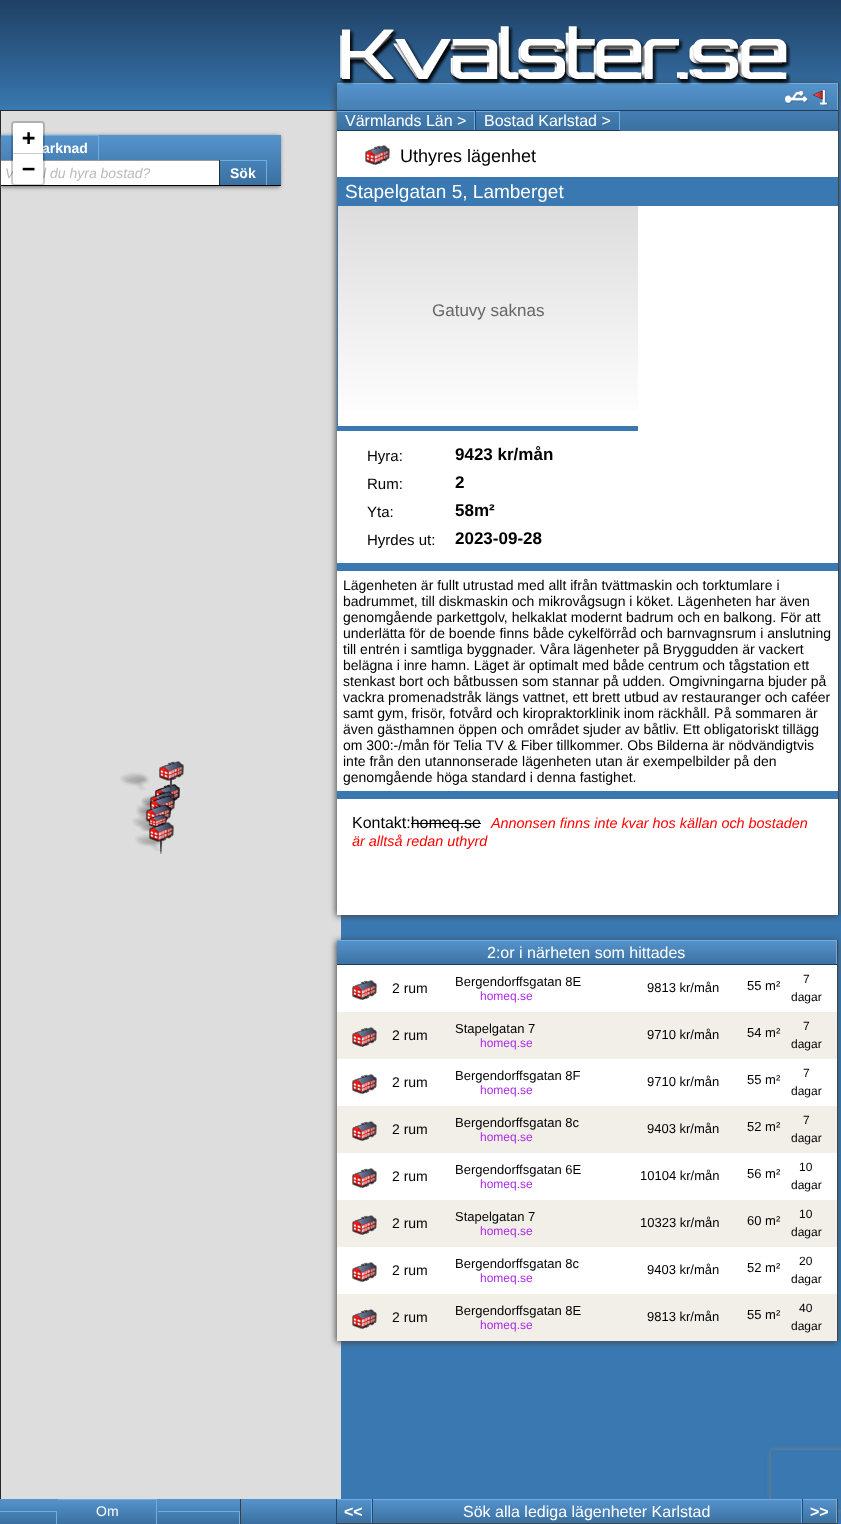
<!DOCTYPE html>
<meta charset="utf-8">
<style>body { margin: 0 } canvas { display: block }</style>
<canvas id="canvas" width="841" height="1524"></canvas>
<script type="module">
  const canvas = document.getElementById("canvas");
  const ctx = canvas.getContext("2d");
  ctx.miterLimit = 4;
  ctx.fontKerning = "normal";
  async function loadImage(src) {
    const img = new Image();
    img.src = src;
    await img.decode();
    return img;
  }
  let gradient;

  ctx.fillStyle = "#3978b0";
  ctx.fillRect(0, 0, 841, 1524);
  gradient = ctx.createLinearGradient(421, 0, 421, 110);
  gradient.addColorStop(0, "#1f4064");
  gradient.addColorStop(1, "#3978b0");
  ctx.fillStyle = gradient;
  ctx.fillRect(0, 0, 841, 106);
  ctx.fillStyle = "#282828";
  ctx.fillRect(0, 110, 1, 1389);
  ctx.fillStyle = "#dddddd";
  ctx.fillRect(1, 111, 340, 1388);
  ctx.fillStyle = "#282828";
  ctx.fillRect(1, 110, 340, 1);
  ctx.fillStyle = "#666666";
  ctx.filter = "blur(2px)";
  ctx.beginPath();
  ctx.rect(0, 136, 280, 51);
  ctx.fill();
  ctx.filter = "none";
  gradient = ctx.createLinearGradient(141, 135, 141, 185);
  gradient.addColorStop(0, "#5694cc");
  gradient.addColorStop(1, "#3a70a1");
  ctx.fillStyle = gradient;
  ctx.fillRect(1, 135, 280, 50);
  ctx.fillStyle = "#000000";
  ctx.fillRect(1, 185, 280, 1);
  ctx.fillStyle = "#6dade6";
  ctx.fillRect(1, 135, 98, 1);
  ctx.font = "bold 14px Liberation Sans";
  ctx.fillStyle = "#ffffff";
  ctx.fillText("arknad", 42, 153);
  ctx.fillRect(1, 161, 218, 24);
  ctx.fillStyle = "#999999";
  ctx.fillRect(1, 160, 218, 1);
  ctx.font = "italic 14px Liberation Sans";
  ctx.fillStyle = "#bbbbbb";
  ctx.fillText("V", 5, 178);
  ctx.fillText("l du hyra bostad?", 43, 178);
  ctx.beginPath();
  ctx.roundRect(12, 122, 32, 63, 3);
  ctx.strokeStyle = "rgba(0, 0, 0, 0.2)";
  ctx.lineWidth = 2;
  ctx.stroke();
  ctx.fillStyle = "#ffffff";
  ctx.beginPath();
  ctx.roundRect(13, 123, 30, 31, [2, 2, 0, 0]);
  ctx.fill();
  ctx.fillStyle = "#cccccc";
  ctx.fillRect(13, 153, 30, 1);
  ctx.font = "bold 22px DejaVu Sans Mono";
  ctx.fillStyle = "#000000";
  ctx.fillText("+", 22, 145);
  ctx.fillStyle = "#ffffff";
  ctx.beginPath();
  ctx.roundRect(13, 154, 30, 30, [0, 0, 2, 2]);
  ctx.fill();
  ctx.fillStyle = "#000000";
  ctx.fillText("−", 22, 176);
  ctx.drawImage(await loadImage("img14.png"), 136, 806, 16, 13);
  ctx.drawImage(await loadImage("img11.png"), 141, 795, 16, 13);
  ctx.drawImage(await loadImage("img13.png"), 136, 802, 16, 13);
  ctx.drawImage(await loadImage("img12.png"), 141, 795, 16, 13);
  ctx.drawImage(await loadImage("img2.png"), 155, 784, 25, 17);
  ctx.drawImage(await loadImage("img3.png"), 155, 784, 25, 17);
  ctx.drawImage(await loadImage("img1.png"), 159, 761, 25, 32);
  ctx.drawImage(await loadImage("img4.png"), 150, 791, 25, 18);
  ctx.drawImage(await loadImage("img15.png"), 132, 815, 29, 15);
  ctx.drawImage(await loadImage("img17.png"), 140, 824, 19, 9);
  ctx.drawImage(await loadImage("img16.png"), 144, 816, 18, 10);
  ctx.drawImage(await loadImage("img5.png"), 150, 795, 25, 31);
  ctx.drawImage(await loadImage("img7.png"), 153, 805, 18, 21);
  ctx.drawImage(await loadImage("img6.png"), 146, 804, 25, 23);
  ctx.drawImage(await loadImage("img8.png"), 149, 814, 18, 14);
  ctx.drawImage(await loadImage("img10.png"), 135, 833, 30, 18);
  ctx.drawImage(await loadImage("img9.png"), 149, 822, 25, 32);
  ctx.drawImage(await loadImage("img10.png"), 120, 772, 30, 18);
  ctx.fillStyle = "#6dade6";
  ctx.fillRect(98, 135, 1, 25);
  ctx.fillRect(219, 160, 48, 1);
  ctx.fillRect(266, 160, 1, 25);
  ctx.fillStyle = "#1d2e3e";
  ctx.fillRect(219, 160, 1, 25);
  ctx.font = "bold 14px Liberation Sans";
  ctx.fillStyle = "#ffffff";
  ctx.fillText("Sök", 230, 178);
  ctx.fillStyle = "#444444";
  ctx.filter = "blur(3px)";
  ctx.beginPath();
  ctx.rect(336, 84, 502, 832);
  ctx.fill();
  ctx.filter = "none";
  gradient = ctx.createLinearGradient(588, 83, 588, 131);
  gradient.addColorStop(0, "#5694cc");
  gradient.addColorStop(1, "#3a70a1");
  ctx.fillStyle = gradient;
  ctx.fillRect(337, 84, 501, 47);
  ctx.fillStyle = "#6dade6";
  ctx.fillRect(337, 83, 501, 1);
  ctx.drawImage(await loadImage("img18.png"), 339, 26, 452, 59);
  ctx.fillStyle = "#ffffff";
  ctx.fillRect(337, 131, 501, 784);
  ctx.fillStyle = "#444444";
  ctx.fillRect(838, 83, 1, 832);
  ctx.fillStyle = "#6dade6";
  ctx.fillRect(837, 83, 1, 28);
  ctx.fillStyle = "#1d3d5b";
  ctx.fillRect(337, 110, 501, 1);
  ctx.drawImage(await loadImage("img19.png"), 785, 91, 23, 13);
  ctx.drawImage(await loadImage("img20.png"), 813, 90, 15, 16);
  ctx.fillRect(337, 130, 283, 1);
  ctx.fillStyle = "#6dade6";
  ctx.fillRect(337, 111, 138, 1);
  ctx.fillRect(474, 111, 1, 19);
  ctx.font = "16px Liberation Sans";
  ctx.fillStyle = "#ffffff";
  ctx.fillText("Värmlands Län >", 345, 126);
  ctx.fillStyle = "#234a6e";
  ctx.fillRect(475, 111, 1, 20);
  ctx.fillStyle = "#6dade6";
  ctx.fillRect(476, 111, 144, 1);
  ctx.fillRect(619, 111, 1, 19);
  ctx.fillStyle = "#ffffff";
  ctx.fillText("Bostad Karlstad >", 484, 126);
  ctx.drawImage(await loadImage("img21.png"), 365, 145, 25, 20);
  ctx.font = "18px Liberation Sans";
  ctx.fillStyle = "#000000";
  ctx.fillText("Uthyres lägenhet", 400, 162);
  ctx.fillStyle = "#3978b0";
  ctx.fillRect(337, 177, 501, 29);
  ctx.font = "19px Liberation Sans";
  ctx.fillStyle = "#ffffff";
  ctx.fillText("Stapelgatan 5, Lamberget", 345, 198);
  gradient = ctx.createLinearGradient(488, 206, 488, 426);
  gradient.addColorStop(0, "#dddddd");
  gradient.addColorStop(1, "#ffffff");
  ctx.fillStyle = gradient;
  ctx.fillRect(338, 206, 300, 204);
  ctx.fillStyle = "#3978b0";
  ctx.fillRect(337, 426, 301, 5);
  ctx.fillRect(337, 206, 1, 225);
  ctx.font = "17px Liberation Sans";
  ctx.fillStyle = "#666666";
  ctx.fillText("Gatuvy saknas", 432, 316);
  ctx.font = "15px Liberation Sans";
  ctx.fillStyle = "#000000";
  ctx.fillText("Hyra:", 367, 461);
  ctx.font = "bold 17px Liberation Sans";
  ctx.fillText("9423 kr/mån", 455, 460);
  ctx.font = "15px Liberation Sans";
  ctx.fillText("Rum:", 367, 489);
  ctx.font = "bold 17px Liberation Sans";
  ctx.fillText("2", 455, 488);
  ctx.font = "15px Liberation Sans";
  ctx.fillText("Yta:", 367, 517);
  ctx.font = "bold 17px Liberation Sans";
  ctx.fillText("58m²", 455, 516);
  ctx.font = "15px Liberation Sans";
  ctx.fillText("Hyrdes ut:", 367, 545);
  ctx.font = "bold 17px Liberation Sans";
  ctx.fillText("2023-09-28", 455, 544);
  ctx.fillStyle = "#3978b0";
  ctx.fillRect(337, 563, 501, 8);
  ctx.fillRect(337, 791, 501, 8);
  ctx.font = "14px Liberation Sans";
  ctx.fillStyle = "#000000";
  ctx.fillText("Lägenheten är fullt utrustad med allt ifrån tvättmaskin och torktumlare i", 343, 590);
  ctx.fillText("badrummet, till diskmaskin och mikrovågsugn i köket. Lägenheten har även", 343, 606);
  ctx.fillText("genomgående parkettgolv, helkaklat modernt badrum och en balkong. För att", 343, 622);
  ctx.fillText("underlätta för de boende finns både cykelförråd och barnvagnsrum i anslutning", 343, 638);
  ctx.fillText("till entrén i samtliga byggnader. Våra lägenheter på Bryggudden är vackert", 343, 654);
  ctx.fillText("belägna i inre hamn. Läget är optimalt med både centrum och tågstation ett", 343, 670);
  ctx.fillText("stenkast bort och båtbussen som stannar på udden. Omgivningarna bjuder på", 343, 686);
  ctx.fillText("vackra promenadstråk längs vattnet, ett brett utbud av restauranger och caféer", 343, 702);
  ctx.fillText("samt gym, frisör, fotvård och kiropraktorklinik inom räckhåll. På sommaren är", 343, 718);
  ctx.fillText("även gästhamnen öppen och området sjuder av båtliv. Ett obligatoriskt tillägg", 343, 734);
  ctx.fillText("om 300:-/mån för Telia TV & Fiber tillkommer. Obs Bilderna är nödvändigtvis", 343, 750);
  ctx.fillText("inte från den utannonserade lägenheten utan är exempelbilder på den", 343, 766);
  ctx.fillText("genomgående höga standard i denna fastighet.", 343, 782);
  ctx.font = "16px Liberation Sans";
  ctx.fillText("Kontakt:homeq.se", 352, 828);
  ctx.font = "italic 14.4px Liberation Sans";
  ctx.fillStyle = "#ff0000";
  ctx.fillText("Annonsen finns inte kvar hos källan och bostaden", 491, 828);
  ctx.fillStyle = "#000000";
  ctx.fillRect(411, 823, 70, 1);
  ctx.fillStyle = "#ff0000";
  ctx.fillText("är alltså redan uthyrd", 352, 846);
  ctx.fillStyle = "#444444";
  ctx.filter = "blur(3px)";
  ctx.beginPath();
  ctx.rect(336, 941, 501, 401);
  ctx.fill();
  ctx.filter = "none";
  ctx.fillStyle = "#ffffff";
  ctx.fillRect(337, 965, 500, 329);
  ctx.fillStyle = "#444444";
  ctx.fillRect(837, 940, 1, 401);
  gradient = ctx.createLinearGradient(587, 940, 587, 965);
  gradient.addColorStop(0, "#5694cc");
  gradient.addColorStop(1, "#3a70a1");
  ctx.fillStyle = gradient;
  ctx.fillRect(337, 941, 499, 23);
  ctx.fillStyle = "#6dade6";
  ctx.fillRect(337, 940, 500, 1);
  ctx.fillRect(836, 940, 1, 25);
  ctx.fillStyle = "#1d3d5b";
  ctx.fillRect(337, 964, 500, 1);
  ctx.font = "16px Liberation Sans";
  ctx.fillStyle = "#ffffff";
  ctx.fillText("2:or i närheten som hittades", 487, 958);
  ctx.drawImage(await loadImage("img21.png"), 352, 980, 25, 20);
  ctx.font = "14px Liberation Sans";
  ctx.fillStyle = "#000000";
  ctx.fillText("2 rum", 392, 993);
  ctx.font = "13px Liberation Sans";
  ctx.fillText("Bergendorffsgatan 8E", 455, 986);
  ctx.font = "12px Liberation Sans";
  ctx.fillStyle = "#ad2be8";
  ctx.fillText("homeq.se", 480, 1000);
  ctx.font = "13px Liberation Sans";
  ctx.fillStyle = "#000000";
  ctx.fillText("9813 kr/mån", 647, 992);
  ctx.fillText("55 m²", 747, 990);
  ctx.font = "12px Liberation Sans";
  ctx.fillText("7", 803, 983);
  ctx.fillText("dagar", 791, 1001);
  ctx.fillStyle = "#f2efe9";
  ctx.fillRect(337, 1012, 500, 47);
  ctx.drawImage(await loadImage("img22.png"), 352, 1027, 25, 20);
  ctx.font = "14px Liberation Sans";
  ctx.fillStyle = "#000000";
  ctx.fillText("2 rum", 392, 1040);
  ctx.font = "13px Liberation Sans";
  ctx.fillText("Stapelgatan 7", 455, 1033);
  ctx.font = "12px Liberation Sans";
  ctx.fillStyle = "#ad2be8";
  ctx.fillText("homeq.se", 480, 1047);
  ctx.font = "13px Liberation Sans";
  ctx.fillStyle = "#000000";
  ctx.fillText("9710 kr/mån", 647, 1039);
  ctx.fillText("54 m²", 747, 1037);
  ctx.font = "12px Liberation Sans";
  ctx.fillText("7", 803, 1030);
  ctx.fillText("dagar", 791, 1048);
  ctx.drawImage(await loadImage("img21.png"), 352, 1074, 25, 20);
  ctx.font = "14px Liberation Sans";
  ctx.fillText("2 rum", 392, 1087);
  ctx.font = "13px Liberation Sans";
  ctx.fillText("Bergendorffsgatan 8F", 455, 1080);
  ctx.font = "12px Liberation Sans";
  ctx.fillStyle = "#ad2be8";
  ctx.fillText("homeq.se", 480, 1094);
  ctx.font = "13px Liberation Sans";
  ctx.fillStyle = "#000000";
  ctx.fillText("9710 kr/mån", 647, 1086);
  ctx.fillText("55 m²", 747, 1084);
  ctx.font = "12px Liberation Sans";
  ctx.fillText("7", 803, 1077);
  ctx.fillText("dagar", 791, 1095);
  ctx.fillStyle = "#f2efe9";
  ctx.fillRect(337, 1106, 500, 47);
  ctx.drawImage(await loadImage("img22.png"), 352, 1121, 25, 20);
  ctx.font = "14px Liberation Sans";
  ctx.fillStyle = "#000000";
  ctx.fillText("2 rum", 392, 1134);
  ctx.font = "13px Liberation Sans";
  ctx.fillText("Bergendorffsgatan 8c", 455, 1127);
  ctx.font = "12px Liberation Sans";
  ctx.fillStyle = "#ad2be8";
  ctx.fillText("homeq.se", 480, 1141);
  ctx.font = "13px Liberation Sans";
  ctx.fillStyle = "#000000";
  ctx.fillText("9403 kr/mån", 647, 1133);
  ctx.fillText("52 m²", 747, 1131);
  ctx.font = "12px Liberation Sans";
  ctx.fillText("7", 803, 1124);
  ctx.fillText("dagar", 791, 1142);
  ctx.drawImage(await loadImage("img21.png"), 352, 1168, 25, 20);
  ctx.font = "14px Liberation Sans";
  ctx.fillText("2 rum", 392, 1181);
  ctx.font = "13px Liberation Sans";
  ctx.fillText("Bergendorffsgatan 6E", 455, 1174);
  ctx.font = "12px Liberation Sans";
  ctx.fillStyle = "#ad2be8";
  ctx.fillText("homeq.se", 480, 1188);
  ctx.font = "13px Liberation Sans";
  ctx.fillStyle = "#000000";
  ctx.fillText("10104 kr/mån", 640, 1180);
  ctx.fillText("56 m²", 747, 1178);
  ctx.font = "12px Liberation Sans";
  ctx.fillText("10", 799, 1171);
  ctx.fillText("dagar", 791, 1189);
  ctx.fillStyle = "#f2efe9";
  ctx.fillRect(337, 1200, 500, 47);
  ctx.drawImage(await loadImage("img22.png"), 352, 1215, 25, 20);
  ctx.font = "14px Liberation Sans";
  ctx.fillStyle = "#000000";
  ctx.fillText("2 rum", 392, 1228);
  ctx.font = "13px Liberation Sans";
  ctx.fillText("Stapelgatan 7", 455, 1221);
  ctx.font = "12px Liberation Sans";
  ctx.fillStyle = "#ad2be8";
  ctx.fillText("homeq.se", 480, 1235);
  ctx.font = "13px Liberation Sans";
  ctx.fillStyle = "#000000";
  ctx.fillText("10323 kr/mån", 640, 1227);
  ctx.fillText("60 m²", 747, 1225);
  ctx.font = "12px Liberation Sans";
  ctx.fillText("10", 799, 1218);
  ctx.fillText("dagar", 791, 1236);
  ctx.drawImage(await loadImage("img21.png"), 352, 1262, 25, 20);
  ctx.font = "14px Liberation Sans";
  ctx.fillText("2 rum", 392, 1275);
  ctx.font = "13px Liberation Sans";
  ctx.fillText("Bergendorffsgatan 8c", 455, 1268);
  ctx.font = "12px Liberation Sans";
  ctx.fillStyle = "#ad2be8";
  ctx.fillText("homeq.se", 480, 1282);
  ctx.font = "13px Liberation Sans";
  ctx.fillStyle = "#000000";
  ctx.fillText("9403 kr/mån", 647, 1274);
  ctx.fillText("52 m²", 747, 1272);
  ctx.font = "12px Liberation Sans";
  ctx.fillText("20", 799, 1265);
  ctx.fillText("dagar", 791, 1283);
  ctx.fillStyle = "#f2efe9";
  ctx.fillRect(337, 1294, 500, 47);
  ctx.drawImage(await loadImage("img22.png"), 352, 1309, 25, 20);
  ctx.font = "14px Liberation Sans";
  ctx.fillStyle = "#000000";
  ctx.fillText("2 rum", 392, 1322);
  ctx.font = "13px Liberation Sans";
  ctx.fillText("Bergendorffsgatan 8E", 455, 1315);
  ctx.font = "12px Liberation Sans";
  ctx.fillStyle = "#ad2be8";
  ctx.fillText("homeq.se", 480, 1329);
  ctx.font = "13px Liberation Sans";
  ctx.fillStyle = "#000000";
  ctx.fillText("9813 kr/mån", 647, 1321);
  ctx.fillText("55 m²", 747, 1319);
  ctx.font = "12px Liberation Sans";
  ctx.fillText("40", 799, 1312);
  ctx.fillText("dagar", 791, 1330);
  ctx.save();
  ctx.beginPath();
  ctx.moveTo(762, 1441);
  ctx.lineTo(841, 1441);
  ctx.lineTo(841, 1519);
  ctx.lineTo(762, 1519);
  ctx.closePath();
  ctx.moveTo(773, 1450);
  ctx.lineTo(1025, 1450);
  ctx.bezierCurveTo(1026, 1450, 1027, 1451, 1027, 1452);
  ctx.lineTo(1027, 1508);
  ctx.bezierCurveTo(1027, 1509, 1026, 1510, 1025, 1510);
  ctx.lineTo(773, 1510);
  ctx.bezierCurveTo(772, 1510, 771, 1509, 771, 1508);
  ctx.lineTo(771, 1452);
  ctx.bezierCurveTo(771, 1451, 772, 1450, 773, 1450);
  ctx.closePath();
  ctx.clip("evenodd");
  ctx.fillStyle = "#808080";
  ctx.filter = "blur(2.5px)";
  ctx.beginPath();
  ctx.roundRect(771, 1450, 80, 60, 2);
  ctx.fill();
  ctx.filter = "none";
  ctx.restore();
  gradient = ctx.createLinearGradient(587, 1499, 587, 1523);
  gradient.addColorStop(0, "#5694cc");
  gradient.addColorStop(1, "#3a70a1");
  ctx.fillStyle = gradient;
  ctx.fillRect(337, 1500, 499, 23);
  ctx.fillStyle = "#444444";
  ctx.fillRect(837, 1499, 1, 25);
  ctx.fillRect(336, 1523, 502, 1);
  ctx.fillStyle = "#234a6e";
  ctx.fillRect(336, 1499, 1, 25);
  ctx.fillStyle = "#6dade6";
  ctx.fillRect(337, 1499, 35, 1);
  ctx.fillRect(371, 1499, 1, 24);
  ctx.font = "bold 16px Liberation Sans";
  ctx.fillStyle = "#ffffff";
  ctx.fillText("<<", 344, 1517);
  ctx.fillStyle = "#234a6e";
  ctx.fillRect(372, 1499, 1, 25);
  ctx.fillStyle = "#6dade6";
  ctx.fillRect(373, 1499, 429, 1);
  ctx.fillRect(801, 1499, 1, 24);
  ctx.font = "16px Liberation Sans";
  ctx.fillStyle = "#ffffff";
  ctx.fillText("Sök alla lediga lägenheter Karlstad", 463, 1517);
  ctx.fillStyle = "#234a6e";
  ctx.fillRect(802, 1499, 1, 25);
  ctx.fillStyle = "#6dade6";
  ctx.fillRect(803, 1499, 34, 1);
  ctx.fillRect(836, 1499, 1, 24);
  ctx.font = "bold 16px Liberation Sans";
  ctx.fillStyle = "#ffffff";
  ctx.fillText(">>", 810, 1517);
  gradient = ctx.createLinearGradient(171, 1499, 171, 1524);
  gradient.addColorStop(0, "#5694cc");
  gradient.addColorStop(1, "#3a70a1");
  ctx.fillStyle = gradient;
  ctx.fillRect(0, 1499, 336, 25);
  ctx.fillStyle = "#3f3f3f";
  ctx.fillRect(240, 1499, 1, 25);
  ctx.fillStyle = "#6dade6";
  ctx.fillRect(0, 1511, 57, 1);
  ctx.fillRect(56, 1511, 1, 13);
  ctx.fillRect(58, 1499, 99, 1);
  ctx.fillRect(156, 1499, 1, 25);
  ctx.font = "14px Liberation Sans";
  ctx.fillStyle = "#ffffff";
  ctx.fillText("Om", 96, 1516);
  ctx.fillStyle = "#6dade6";
  ctx.fillRect(158, 1511, 82, 1);
  ctx.fillRect(239, 1511, 1, 13);
</script>
